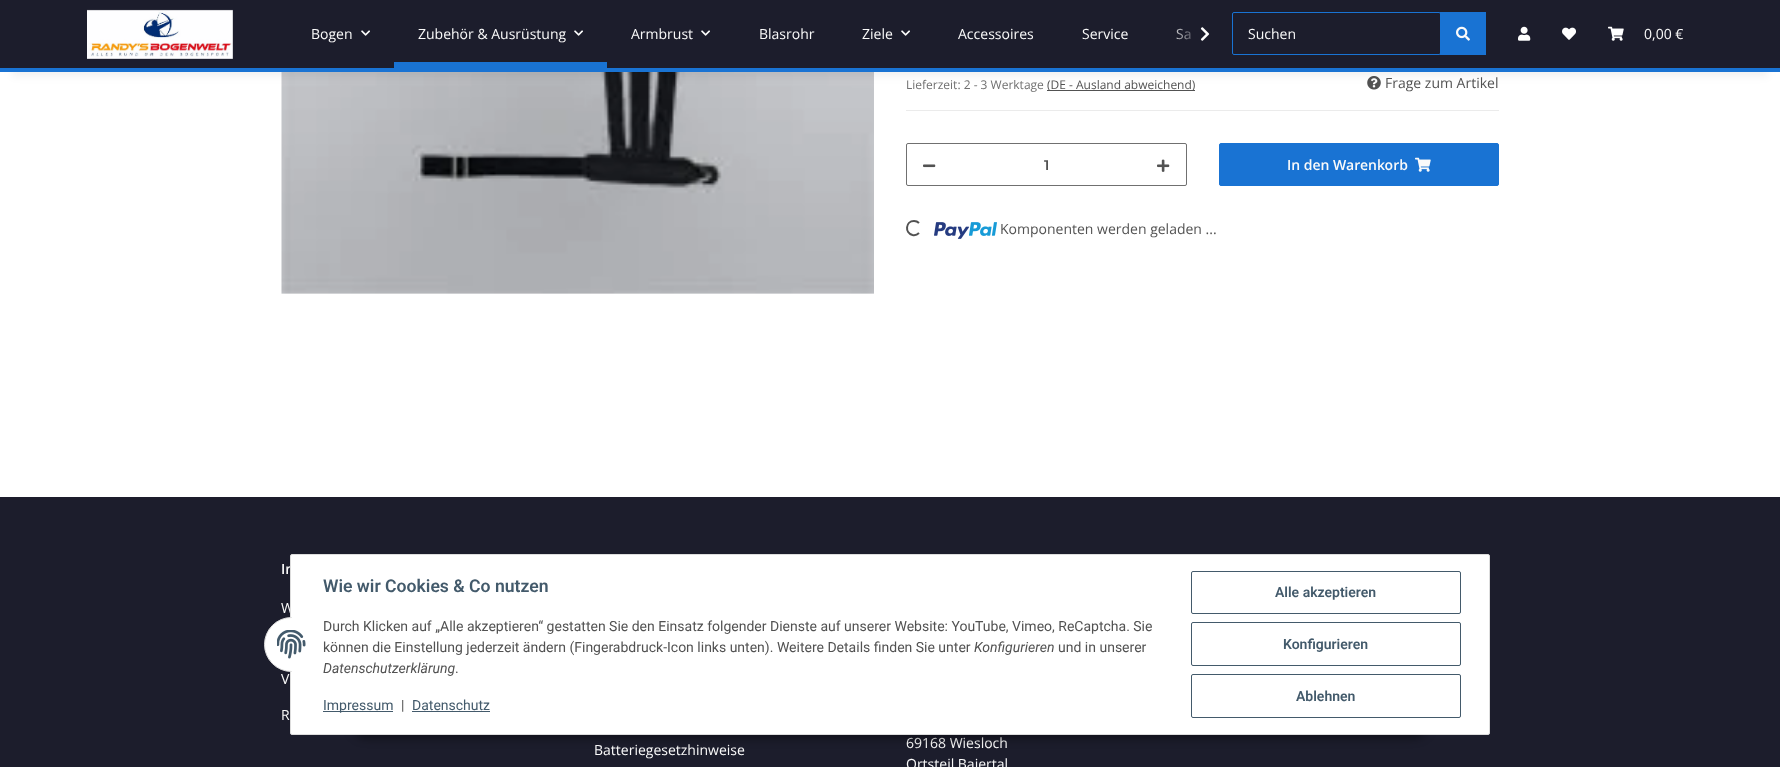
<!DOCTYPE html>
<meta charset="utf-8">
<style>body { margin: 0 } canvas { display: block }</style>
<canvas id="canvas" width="1780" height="767"></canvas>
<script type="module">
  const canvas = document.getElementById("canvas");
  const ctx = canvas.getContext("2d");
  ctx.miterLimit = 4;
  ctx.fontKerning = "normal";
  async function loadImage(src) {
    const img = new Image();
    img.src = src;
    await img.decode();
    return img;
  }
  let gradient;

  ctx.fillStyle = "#ffffff";
  ctx.fillRect(0, 0, 1780, 767);
  ctx.drawImage(await loadImage("img8.png"), 281, 72, 593, 222);
  ctx.fillStyle = "#525252";
  ctx.fillRect(1047, 90, 148, 1);
  ctx.drawImage(await loadImage("img9.png"), 1367, 76, 14, 14);
  ctx.fillStyle = "rgba(0, 0, 0, 0.06)";
  ctx.filter = "blur(4.5px)";
  ctx.beginPath();
  ctx.rect(12, 28, 1756, 48);
  ctx.fill();
  ctx.filter = "none";
  ctx.fillStyle = "#1c1d2c";
  ctx.fillRect(0, 0, 1780, 68);
  ctx.fillStyle = "#1973d3";
  ctx.fillRect(0, 68, 1780, 4);
  ctx.drawImage(await loadImage("img1.png"), 87, 9, 146, 50);
  ctx.font = "14px Open Sans";
  ctx.fillStyle = "#fafafa";
  ctx.fillText("Bogen", 311, 39);
  ctx.drawImage(await loadImage("img2.png"), 361, 30, 9, 6);
  ctx.fillText("Zubehör & Ausrüstung", 418, 39);
  ctx.drawImage(await loadImage("img2.png"), 574, 30, 9, 6);
  ctx.fillStyle = "#1973d3";
  ctx.fillRect(394, 62, 213, 6);
  ctx.fillStyle = "#fafafa";
  ctx.fillText("Armbrust", 631, 39);
  ctx.drawImage(await loadImage("img2.png"), 701, 30, 9, 6);
  ctx.fillText("Blasrohr", 759, 39);
  ctx.fillText("Ziele", 862, 39);
  ctx.drawImage(await loadImage("img2.png"), 901, 30, 9, 6);
  ctx.fillText("Accessoires", 958, 39);
  ctx.fillText("Service", 1082, 39);
  ctx.fillText("Sa", 1176, 39);
  gradient = ctx.createLinearGradient(1168, 34, 1216, 34);
  gradient.addColorStop(0, "rgba(28, 29, 44, 0.01)");
  gradient.addColorStop(0.7, "#1c1d2c");
  ctx.fillStyle = gradient;
  ctx.fillRect(1176, 28, 15, 12);
  ctx.drawImage(await loadImage("img3.png"), 1200, 27, 10, 14);
  ctx.beginPath();
  ctx.roundRect(1232.5, 12.5, 208, 42, 1.5);
  ctx.strokeStyle = "#1973d3";
  ctx.stroke();
  ctx.fillStyle = "#fafafa";
  ctx.fillText("Suchen", 1248, 39);
  ctx.fillStyle = "#1973d3";
  ctx.fillRect(1440, 12, 46, 43);
  ctx.drawImage(await loadImage("img4.png"), 1456, 26, 14, 15);
  ctx.drawImage(await loadImage("img5.png"), 1518, 26, 13, 15);
  ctx.drawImage(await loadImage("img6.png"), 1562, 27, 14, 13);
  ctx.drawImage(await loadImage("img7.png"), 1608, 26, 16, 15);
  ctx.fillStyle = "#fafafa";
  ctx.fillText("0,00 €", 1644, 39);
  ctx.fillStyle = "#ebebeb";
  ctx.fillRect(906, 110, 593, 1);
  ctx.font = "12px Open Sans";
  ctx.fillStyle = "#707070";
  ctx.fillText("Lieferzeit: 2 - 3 Werktage", 906, 89);
  ctx.fillStyle = "#525252";
  ctx.fillText("(DE - Ausland abweichend)", 1047, 89);
  ctx.font = "14px Open Sans";
  ctx.fillText("Frage zum Artikel", 1385, 88);
  ctx.beginPath();
  ctx.roundRect(906.5, 143.5, 280, 42, 1.5);
  ctx.strokeStyle = "#707070";
  ctx.stroke();
  ctx.drawImage(await loadImage("img10.png"), 923, 164, 13, 4);
  ctx.font = "600 14px Montserrat";
  ctx.fillText("1", 1044, 170);
  ctx.drawImage(await loadImage("img11.png"), 1157, 159, 13, 13);
  ctx.fillStyle = "#1973d3";
  ctx.beginPath();
  ctx.roundRect(1219.5, 143.5, 279, 42, 1.5);
  ctx.fill();
  ctx.strokeStyle = "#1973d3";
  ctx.stroke();
  ctx.font = "600 14px Open Sans";
  ctx.fillStyle = "#fafafa";
  ctx.fillText("In den Warenkorb", 1287, 170);
  ctx.drawImage(await loadImage("img12.png"), 1415, 157, 16, 15);
  ctx.beginPath();
  ctx.moveTo(919, 233);
  ctx.bezierCurveTo(917.5, 234.5, 915, 235.5, 912.5, 235);
  ctx.bezierCurveTo(904.5, 233, 905.5, 221, 914, 221);
  ctx.bezierCurveTo(916, 221, 917.5, 221.5, 919, 223);
  ctx.strokeStyle = "#525252";
  ctx.lineWidth = 2;
  ctx.stroke();
  ctx.drawImage(await loadImage("img13.png"), 934, 222, 63, 17);
  ctx.font = "14px Open Sans";
  ctx.fillStyle = "#525252";
  ctx.fillText("Komponenten werden geladen ...", 1000, 234);
  ctx.fillStyle = "#1c1d2c";
  ctx.fillRect(0, 497, 1780, 270);
  ctx.font = "600 14px Open Sans";
  ctx.fillStyle = "#fafafa";
  ctx.fillText("In", 281, 574);
  ctx.font = "14px Open Sans";
  ctx.fillText("W", 281, 613);
  ctx.fillText("V", 281, 684);
  ctx.fillText("R", 281, 720);
  ctx.fillText("Batteriegesetzhinweise", 594, 755);
  ctx.fillText("69168 Wiesloch", 906, 748);
  ctx.fillText("Ortsteil Baiertal", 906, 769);
  ctx.fillStyle = "rgba(0, 0, 0, 0.45)";
  ctx.filter = "blur(5px)";
  ctx.beginPath();
  ctx.roundRect(351, 706, 1078, 32, 16);
  ctx.fill();
  ctx.filter = "none";
  ctx.fillStyle = "#ffffff";
  ctx.beginPath();
  ctx.roundRect(290.5, 554.5, 1199, 180, 1.5);
  ctx.fill();
  ctx.strokeStyle = "#dddddd";
  ctx.lineWidth = 1;
  ctx.stroke();
  ctx.beginPath();
  ctx.arc(291.5, 644.5, 27, 0, Math.PI * 2);
  ctx.fill();
  ctx.stroke();
  ctx.fillRect(292, 617, 27, 55);
  ctx.drawImage(await loadImage("img14.png"), 277, 630, 29, 29);
  ctx.font = "600 17.6px Roboto";
  ctx.fillStyle = "#435a6b";
  ctx.fillText("Wie wir Cookies & Co nutzen", 323, 592);
  ctx.font = "14px Roboto";
  ctx.fillStyle = "#525252";
  ctx.fillText("Durch Klicken auf „Alle akzeptieren“ gestatten Sie den Einsatz folgender Dienste auf unserer Website: YouTube, Vimeo, ReCaptcha. Sie", 323, 631);
  ctx.fillText("können die Einstellung jederzeit ändern (Fingerabdruck-Icon links unten). Weitere Details finden Sie unter", 323, 652);
  ctx.font = "italic 14px Roboto";
  ctx.fillText("Konfigurieren", 974, 652);
  ctx.font = "14px Roboto";
  ctx.fillText("und in unserer", 1058, 652);
  ctx.font = "italic 14px Roboto";
  ctx.fillText("Datenschutzerklärung", 323, 673);
  ctx.font = "14px Roboto";
  ctx.fillText(".", 455, 673);
  ctx.fillStyle = "#435a6b";
  ctx.fillRect(323, 711, 70, 1);
  ctx.fillText("Impressum", 323, 710);
  ctx.fillStyle = "#525252";
  ctx.fillText("|", 401, 710);
  ctx.fillStyle = "#435a6b";
  ctx.fillText("Datenschutz", 412, 710);
  ctx.fillRect(412, 711, 78, 1);
  ctx.beginPath();
  ctx.roundRect(1191.5, 571.5, 269, 42, 1.5);
  ctx.strokeStyle = "#435a6b";
  ctx.stroke();
  ctx.font = "600 14px Roboto";
  ctx.fillText("Alle akzeptieren", 1275, 597);
  ctx.beginPath();
  ctx.roundRect(1191.5, 622.5, 269, 43, 1.5);
  ctx.stroke();
  ctx.fillText("Konfigurieren", 1283, 649);
  ctx.beginPath();
  ctx.roundRect(1191.5, 674.5, 269, 43, 1.5);
  ctx.stroke();
  ctx.fillText("Ablehnen", 1296, 701);
</script>
